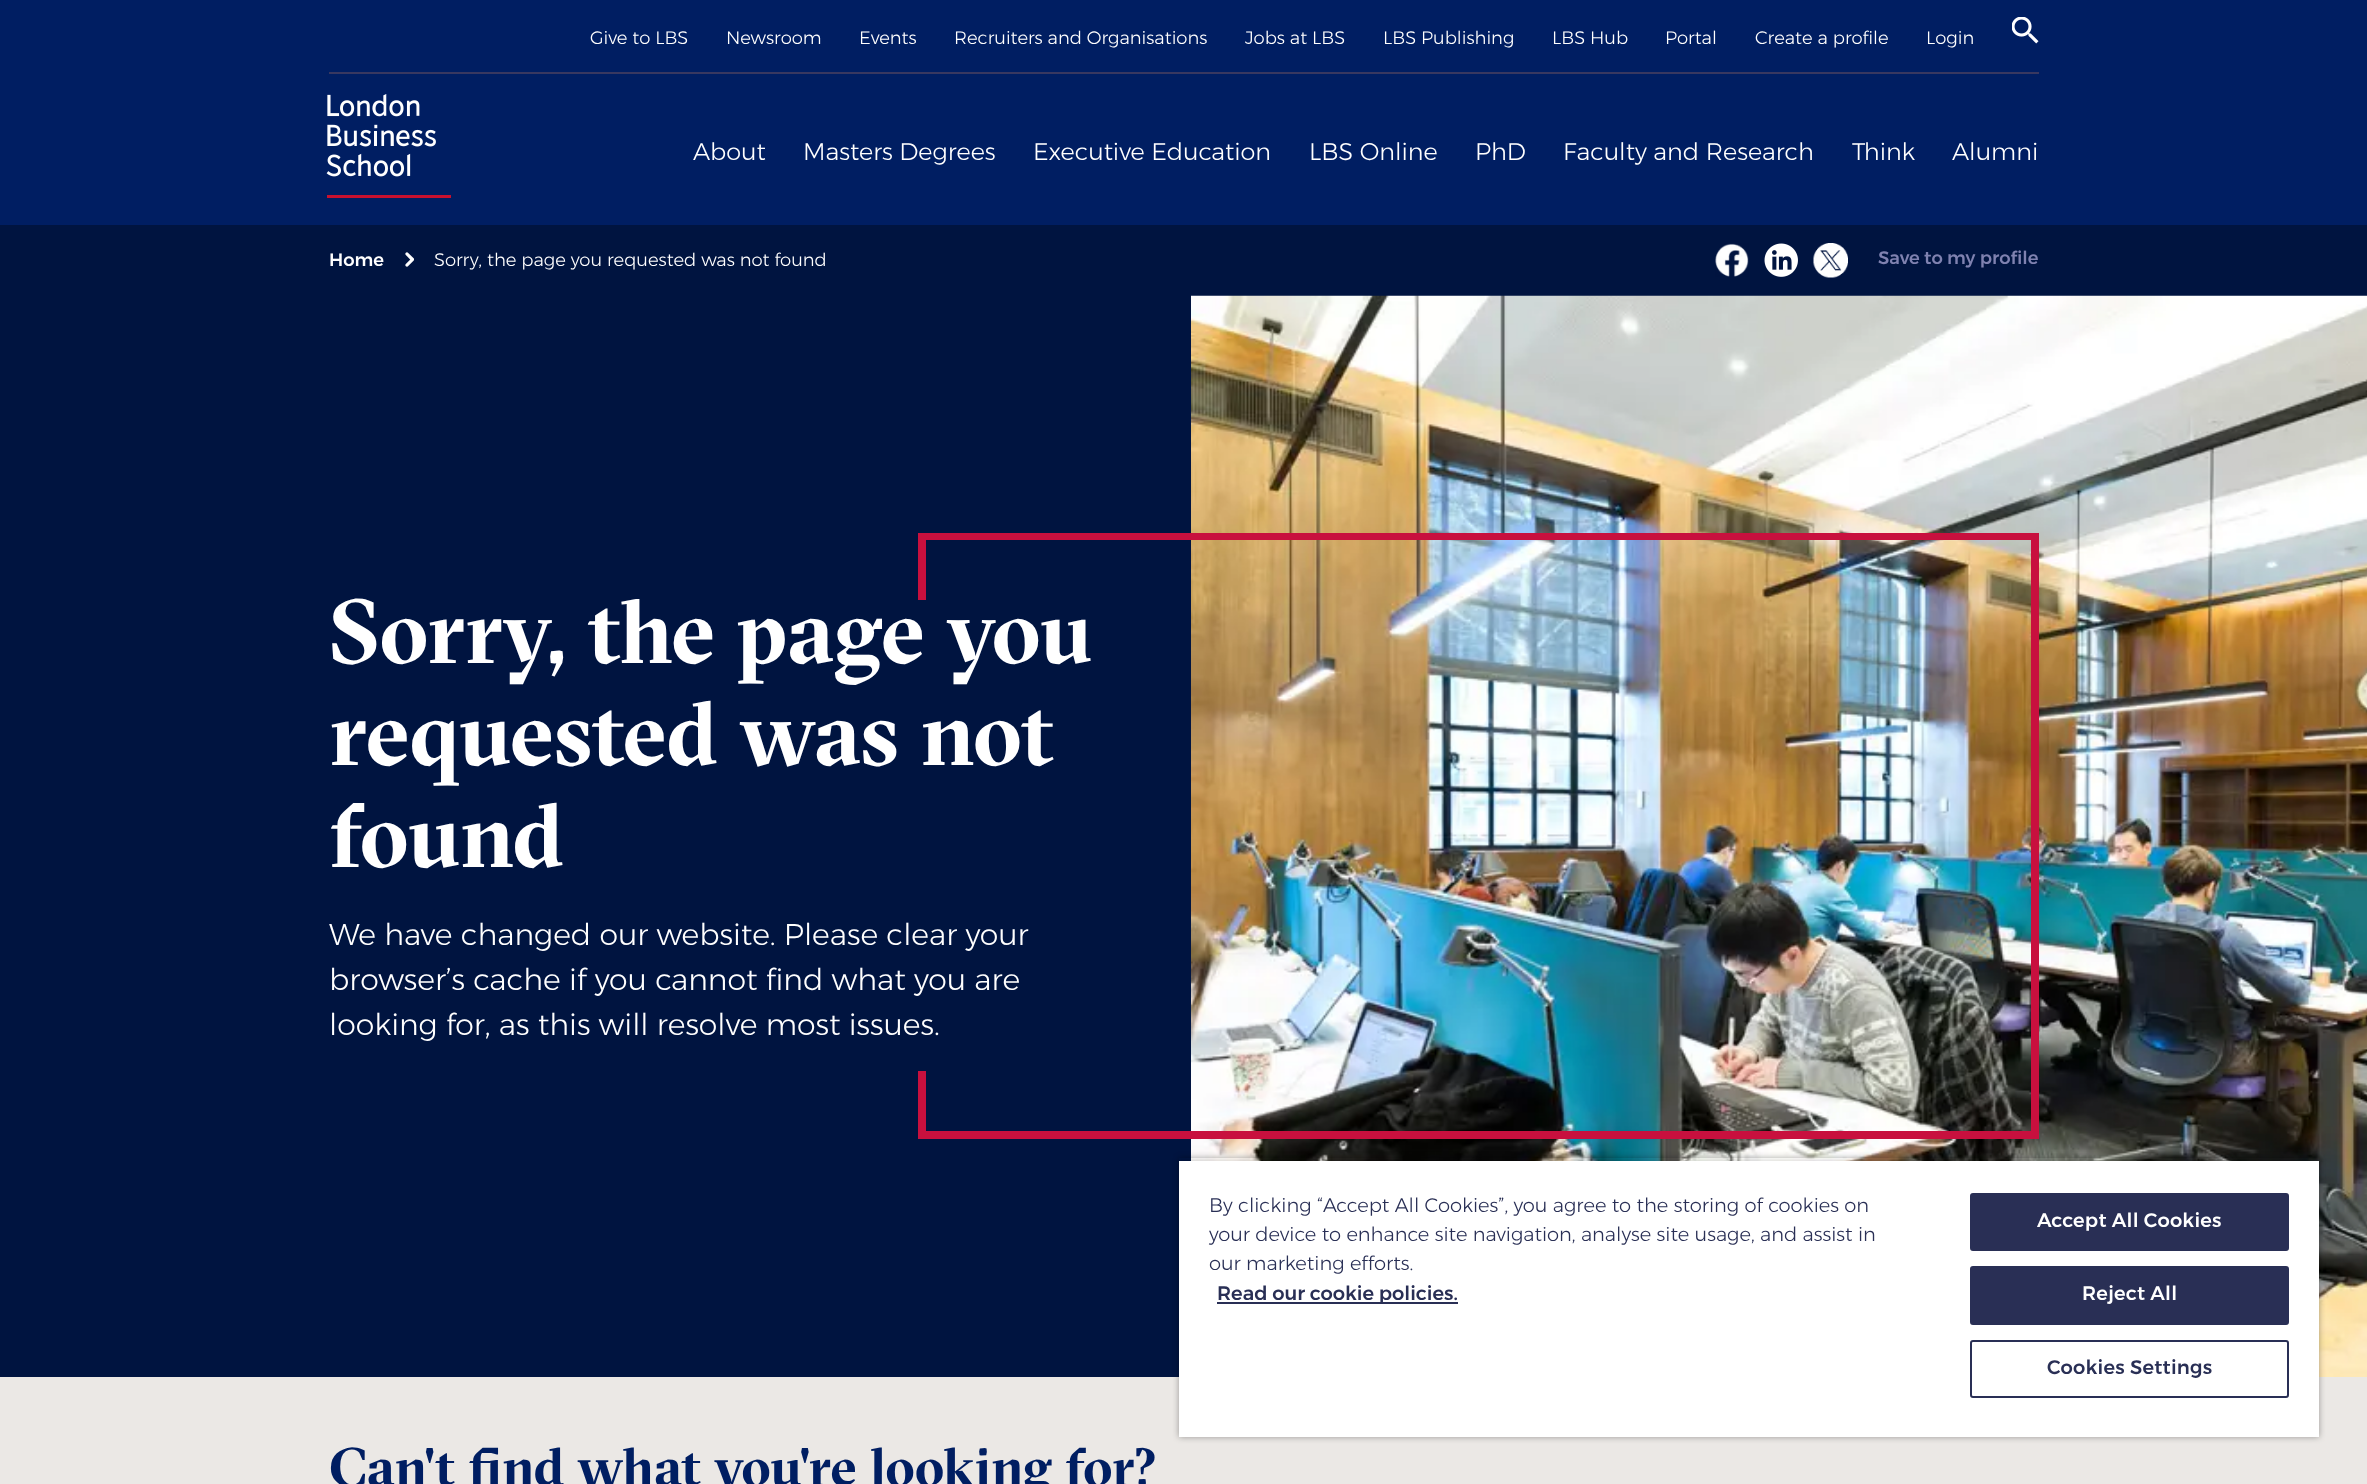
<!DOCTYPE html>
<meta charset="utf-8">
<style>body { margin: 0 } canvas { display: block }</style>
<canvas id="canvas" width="2367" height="1484"></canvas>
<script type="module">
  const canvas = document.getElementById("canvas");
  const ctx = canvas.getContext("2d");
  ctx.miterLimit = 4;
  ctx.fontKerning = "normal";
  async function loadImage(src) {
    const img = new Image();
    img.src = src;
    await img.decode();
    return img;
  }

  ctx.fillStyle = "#001e62";
  ctx.fillRect(0, 0, 2367, 1484);
  ctx.fillStyle = "#383860";
  ctx.fillRect(329, 72, 1710, 2);
  ctx.font = "300 18px Montserrat";
  ctx.fillStyle = "#ffffff";
  ctx.fillText("Give to LBS", 590, 44);
  ctx.fillText("Newsroom", 726, 44);
  ctx.fillText("Events", 859, 44);
  ctx.fillText("Recruiters and Organisations", 954, 44);
  ctx.fillText("Jobs at LBS", 1245, 44);
  ctx.fillText("LBS Publishing", 1383, 44);
  ctx.fillText("LBS Hub", 1552, 44);
  ctx.fillText("Portal", 1665, 44);
  ctx.fillText("Create a profile", 1755, 44);
  ctx.fillText("Login", 1926, 44);
  ctx.drawImage(await loadImage("img1.png"), 2012, 17, 27, 27);
  ctx.drawImage(await loadImage("img2.png"), 326, 94, 125, 104);
  ctx.font = "300 24px Montserrat";
  ctx.fillText("About", 693, 160);
  ctx.fillText("Masters Degrees", 803, 160);
  ctx.fillText("Executive Education", 1033, 160);
  ctx.fillText("LBS Online", 1309, 160);
  ctx.fillText("PhD", 1475, 160);
  ctx.fillText("Faculty and Research", 1563, 160);
  ctx.fillText("Think", 1852, 160);
  ctx.fillText("Alumni", 1952, 160);
  ctx.fillStyle = "#ebe8e5";
  ctx.fillRect(0, 1377, 2367, 107);
  ctx.fillStyle = "#001440";
  ctx.fillRect(0, 225, 2367, 71);
  ctx.font = "500 18px Montserrat";
  ctx.fillStyle = "#ffffff";
  ctx.fillText("Home", 329, 266);
  ctx.drawImage(await loadImage("img3.png"), 405, 252, 9, 15);
  ctx.font = "300 18px Montserrat";
  ctx.fillText("Sorry, the page you requested was not found", 434, 266);
  ctx.drawImage(await loadImage("img4.png"), 1715, 243, 34, 34);
  ctx.drawImage(await loadImage("img5.png"), 1764, 243, 34, 34);
  ctx.drawImage(await loadImage("img6.png"), 1813, 243, 35, 35);
  ctx.font = "500 18px Montserrat";
  ctx.fillStyle = "#7f82b0";
  ctx.fillText("Save to my profile", 1878, 264);
  ctx.fillStyle = "#001440";
  ctx.fillRect(0, 296, 1191, 1081);
  ctx.font = "bold 90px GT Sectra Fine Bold";
  ctx.fillStyle = "#ffffff";
  ctx.fillText("Sorry, the page you", 329, 663);
  ctx.fillText("requested was not", 329, 765);
  ctx.fillText("found", 329, 867);
  ctx.font = "300 30px Montserrat";
  ctx.fillText("We have changed our website. Please clear your", 329, 945);
  ctx.fillText("browser’s cache if you cannot find what you are", 329, 990);
  ctx.fillText("looking for, as this will resolve most issues.", 329, 1035);
  ctx.drawImage(await loadImage("img7.png"), 1191, 295, 1176, 1082);
  ctx.fillStyle = "#c8103e";
  ctx.fillRect(2031, 533, 8, 606);
  ctx.fillRect(918, 533, 1121, 7);
  ctx.fillRect(918, 533, 8, 67);
  ctx.fillRect(918, 1071, 8, 68);
  ctx.fillRect(918, 1131, 1121, 8);
  ctx.font = "bold 54px GT Sectra Fine Bold";
  ctx.fillStyle = "#001e62";
  ctx.fillText("Can't find what you're looking for?", 329, 1486);
  ctx.save();
  ctx.beginPath();
  ctx.moveTo(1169, 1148);
  ctx.lineTo(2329, 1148);
  ctx.lineTo(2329, 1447);
  ctx.lineTo(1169, 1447);
  ctx.closePath();
  ctx.moveTo(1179, 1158);
  ctx.lineTo(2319, 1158);
  ctx.lineTo(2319, 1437);
  ctx.lineTo(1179, 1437);
  ctx.closePath();
  ctx.clip("evenodd");
  ctx.fillStyle = "rgba(0, 0, 0, 0.35)";
  ctx.filter = "blur(3px)";
  ctx.beginPath();
  ctx.rect(1179, 1158, 1140, 279);
  ctx.fill();
  ctx.filter = "none";
  ctx.restore();
  ctx.save();
  ctx.beginPath();
  ctx.rect(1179, 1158, 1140, 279);
  ctx.clip();
  ctx.fillStyle = "rgba(0, 0, 0, 0.2)";
  ctx.filter = "blur(3px)";
  ctx.beginPath();
  ctx.rect(1179, 1161, 1140, 276);
  ctx.fill();
  ctx.filter = "none";
  ctx.restore();
  ctx.fillStyle = "#ffffff";
  ctx.fillRect(1179, 1161, 1140, 276);
  ctx.font = "300 19.5px Montserrat";
  ctx.fillStyle = "#292f55";
  ctx.fillText("By clicking “Accept All Cookies”, you agree to the storing of cookies on", 1209, 1212);
  ctx.fillText("your device to enhance site navigation, analyse site usage, and assist in", 1209, 1241);
  ctx.fillText("our marketing efforts.", 1209, 1270);
  ctx.fillRect(1217, 1302, 241, 2);
  ctx.font = "500 19.5px Montserrat";
  ctx.fillText("Read our cookie policies.", 1217, 1300);
  ctx.beginPath();
  ctx.roundRect(1971, 1194, 317, 56, 2);
  ctx.fill();
  ctx.strokeStyle = "#292f55";
  ctx.lineWidth = 2;
  ctx.stroke();
  ctx.letterSpacing = "0.25px";
  ctx.fillStyle = "#ffffff";
  ctx.fillText("Accept All Cookies", 2037, 1227);
  ctx.fillStyle = "#292f55";
  ctx.beginPath();
  ctx.roundRect(1971, 1267, 317, 57, 2);
  ctx.fill();
  ctx.stroke();
  ctx.fillStyle = "#ffffff";
  ctx.fillText("Reject All", 2082, 1300);
  ctx.beginPath();
  ctx.roundRect(1971, 1341, 317, 56, 2);
  ctx.stroke();
  ctx.fillStyle = "#292f55";
  ctx.fillText("Cookies Settings", 2047, 1374);
</script>
